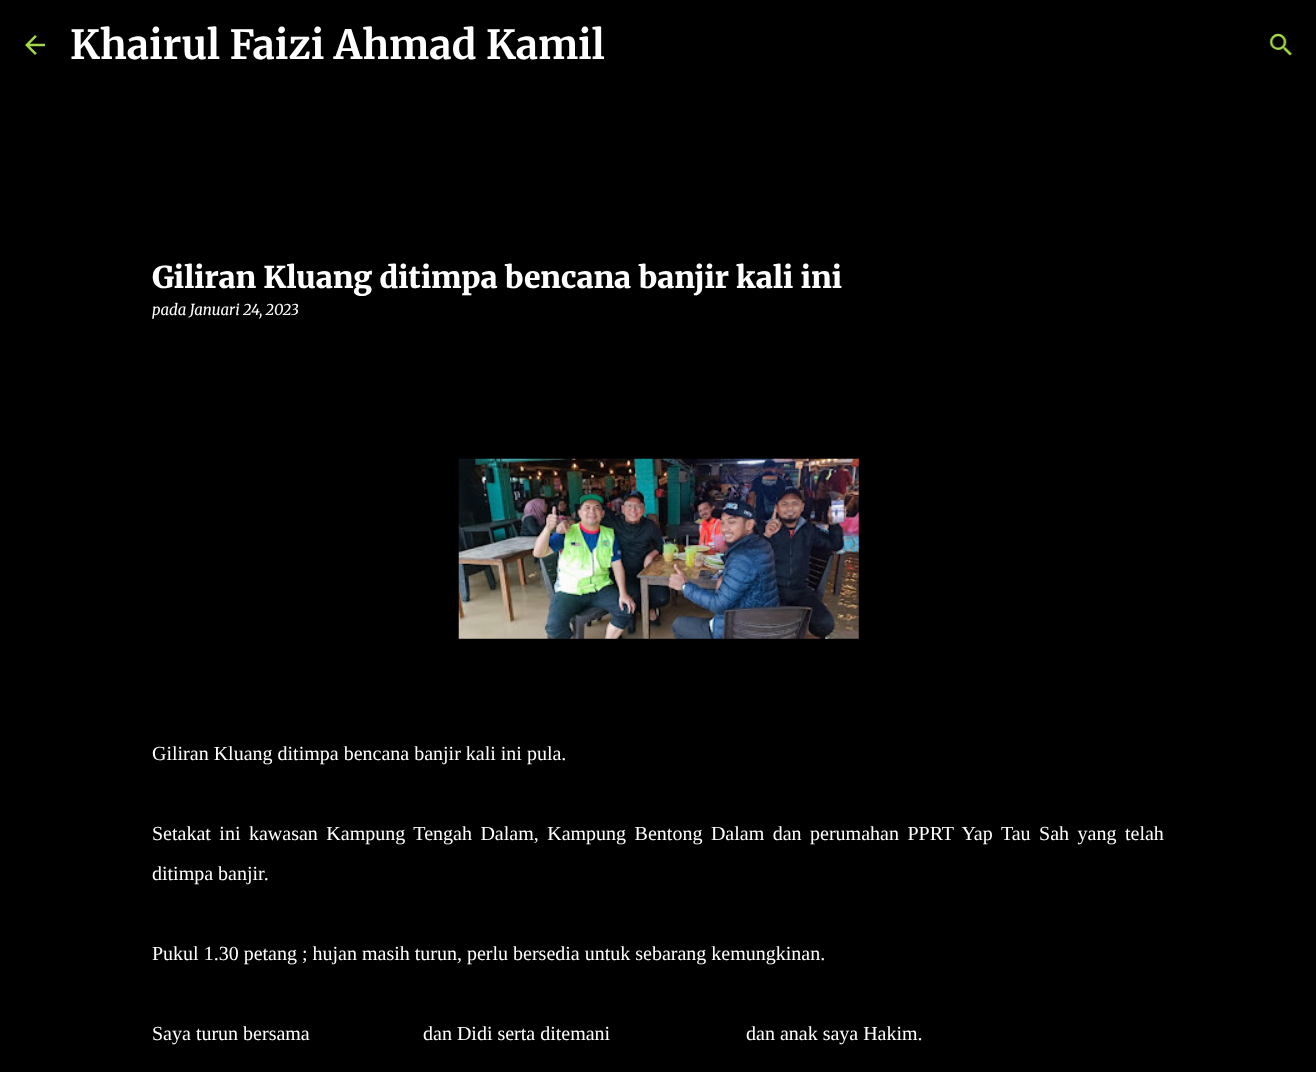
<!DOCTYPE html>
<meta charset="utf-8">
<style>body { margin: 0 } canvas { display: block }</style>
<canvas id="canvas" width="1316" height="1072"></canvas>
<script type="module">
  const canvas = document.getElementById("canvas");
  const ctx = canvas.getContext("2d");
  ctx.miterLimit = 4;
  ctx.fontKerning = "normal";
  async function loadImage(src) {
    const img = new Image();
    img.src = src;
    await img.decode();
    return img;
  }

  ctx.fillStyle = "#000000";
  ctx.fillRect(0, 0, 1316, 1072);
  ctx.drawImage(await loadImage("img1.png"), 25, 35, 20, 20);
  ctx.font = "bold 40px Merriweather";
  ctx.fillStyle = "#ffffff";
  ctx.fillText("Khairul Faizi Ahmad Kamil", 70, 59);
  ctx.drawImage(await loadImage("img2.png"), 1269, 33, 24, 23);
  ctx.font = "900 30px Merriweather";
  ctx.fillText("Giliran Kluang ditimpa bencana banjir kali ini", 152, 288);
  ctx.font = "italic 15px Merriweather";
  ctx.fillText("pada Januari 24, 2023", 152, 315);
  ctx.drawImage(await loadImage("img3.png"), 458, 458, 401, 181);
  ctx.font = "20px Liberation Serif";
  ctx.fillText("Giliran Kluang ditimpa bencana banjir kali ini pula.", 152, 760);
  ctx.wordSpacing = "3.5px";
  ctx.fillText("Setakat ini kawasan Kampung Tengah Dalam, Kampung Bentong Dalam dan perumahan PPRT Yap Tau Sah yang telah", 152, 840);
  ctx.wordSpacing = "0px";
  ctx.fillText("ditimpa banjir.", 152, 880);
  ctx.fillText("Pukul 1.30 petang ; hujan masih turun, perlu bersedia untuk sebarang kemungkinan.", 152, 960);
  ctx.fillText("Saya turun bersama", 152, 1040);
  ctx.fillText("dan Didi serta ditemani", 423, 1040);
  ctx.fillText("dan anak saya Hakim.", 746, 1040);
</script>
